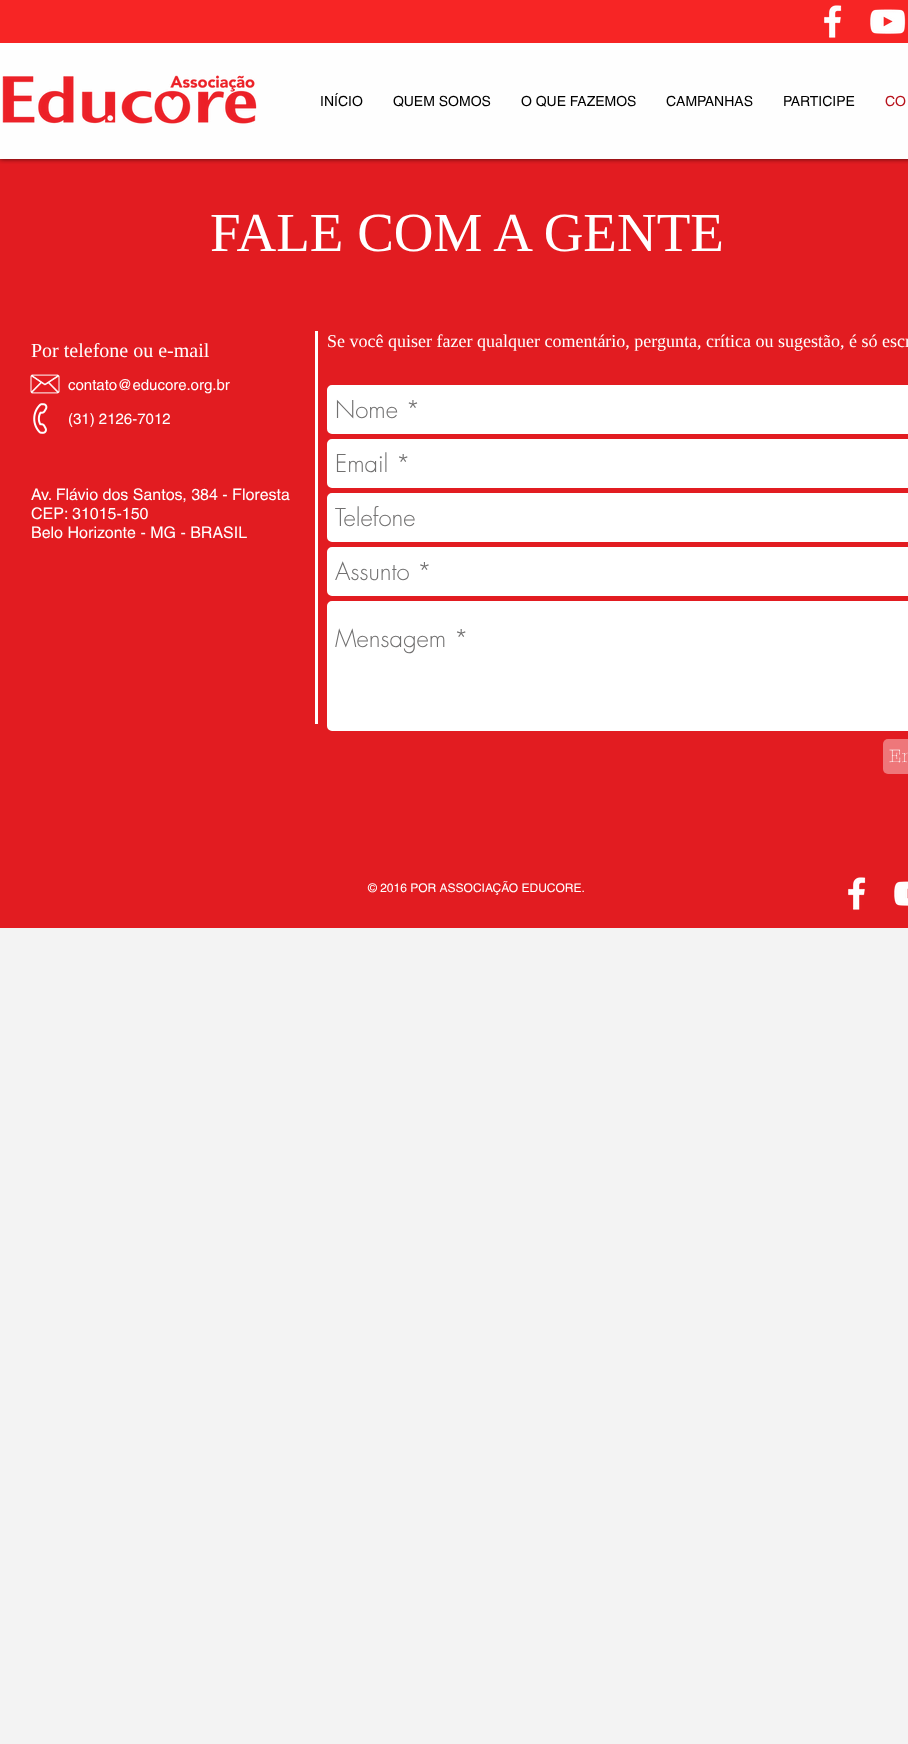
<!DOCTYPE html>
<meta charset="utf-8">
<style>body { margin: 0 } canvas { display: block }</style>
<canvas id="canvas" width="908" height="1744"></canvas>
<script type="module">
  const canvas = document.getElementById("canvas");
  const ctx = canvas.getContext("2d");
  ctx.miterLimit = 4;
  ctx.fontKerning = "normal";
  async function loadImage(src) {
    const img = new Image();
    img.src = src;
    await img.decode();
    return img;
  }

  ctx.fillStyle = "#f3f3f3";
  ctx.fillRect(0, 0, 908, 1744);
  ctx.fillStyle = "#fefefe";
  ctx.fillRect(0, 43, 908, 116);
  ctx.fillStyle = "#e21c21";
  ctx.fillRect(0, 159, 908, 769);
  ctx.save();
  ctx.beginPath();
  ctx.rect(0, 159, 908, 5);
  ctx.clip();
  ctx.fillStyle = "rgba(0, 0, 0, 0.7)";
  ctx.filter = "blur(2.5px)";
  ctx.beginPath();
  ctx.rect(0, 0, 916, 159);
  ctx.fill();
  ctx.filter = "none";
  ctx.restore();
  ctx.fillStyle = "#f72525";
  ctx.fillRect(0, 0, 908, 43);
  ctx.drawImage(await loadImage("img1.png"), 824, 5, 18, 33);
  ctx.drawImage(await loadImage("img2.png"), 870, 9, 36, 25);
  ctx.drawImage(await loadImage("img3.png"), 2, 75, 255, 49);
  ctx.font = "14px helvetica";
  ctx.fillStyle = "#000000";
  ctx.fillText("INÍCIO", 320, 106);
  ctx.fillText("QUEM SOMOS", 393, 106);
  ctx.fillText("O QUE FAZEMOS", 521, 106);
  ctx.fillText("CAMPANHAS", 666, 106);
  ctx.fillText("PARTICIPE", 783, 106);
  ctx.fillStyle = "#b7121b";
  ctx.fillText("CO", 885, 106);
  ctx.font = "55px Liberation Serif";
  ctx.fillStyle = "#ffffff";
  ctx.fillText("FALE COM A GENTE", 210, 251);
  ctx.font = "20px Liberation Serif";
  ctx.fillText("Por telefone ou e-mail", 31, 357);
  ctx.fillRect(315, 331, 3, 393);
  ctx.font = "18px Liberation Serif";
  ctx.fillText("Se você quiser fazer qualquer comentário, pergunta, crítica ou sugestão, é só escr", 327, 347);
  ctx.drawImage(await loadImage("img4.png"), 30, 374, 30, 20);
  ctx.font = "15px helvetica";
  ctx.fillText("contato@educore.org.br", 68, 390);
  ctx.fillText("(31) 2126-7012", 68, 424);
  ctx.beginPath();
  ctx.roundRect(328.5, 386.5, 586, 46, 3.5);
  ctx.fill();
  ctx.strokeStyle = "#ffffff";
  ctx.lineWidth = 3;
  ctx.stroke();
  ctx.font = "300 24px futura";
  ctx.fillStyle = "#717070";
  ctx.fillText("Nome *", 335, 418);
  ctx.fillStyle = "#ffffff";
  ctx.beginPath();
  ctx.roundRect(328.5, 440.5, 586, 46, 3.5);
  ctx.fill();
  ctx.stroke();
  ctx.fillStyle = "#717070";
  ctx.fillText("Email *", 335, 472);
  ctx.fillStyle = "#ffffff";
  ctx.beginPath();
  ctx.roundRect(328.5, 494.5, 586, 46, 3.5);
  ctx.fill();
  ctx.stroke();
  ctx.fillStyle = "#717070";
  ctx.fillText("Telefone", 335, 526);
  ctx.fillStyle = "#ffffff";
  ctx.beginPath();
  ctx.roundRect(328.5, 548.5, 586, 46, 3.5);
  ctx.fill();
  ctx.stroke();
  ctx.fillStyle = "#717070";
  ctx.fillText("Assunto *", 335, 580);
  ctx.fillStyle = "#ffffff";
  ctx.beginPath();
  ctx.roundRect(328.5, 602.5, 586, 127, 3.5);
  ctx.fill();
  ctx.stroke();
  ctx.fillStyle = "#717070";
  ctx.fillText("Mensagem *", 335, 647);
  ctx.fillStyle = "#ee777a";
  ctx.beginPath();
  ctx.roundRect(883, 739, 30, 35, 5);
  ctx.fill();
  ctx.font = "300 18px 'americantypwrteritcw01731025'";
  ctx.fillStyle = "#ffffff";
  ctx.fillText("En", 889, 762);
  ctx.drawImage(await loadImage("img5.png"), 33, 403, 15, 31);
  ctx.font = "16px helvetica";
  ctx.fillText("Av. Flávio dos Santos, 384 - Floresta", 31, 500);
  ctx.fillText("CEP: 31015-150", 31, 519);
  ctx.fillText("Belo Horizonte - MG - BRASIL", 31, 538);
  ctx.font = "12px helvetica";
  ctx.fillText("© 2016 POR ASSOCIAÇÃO EDUCORE.", 368, 892);
  ctx.drawImage(await loadImage("img6.png"), 848, 877, 18, 33);
  ctx.drawImage(await loadImage("img7.png"), 894, 881, 14, 25);
</script>
